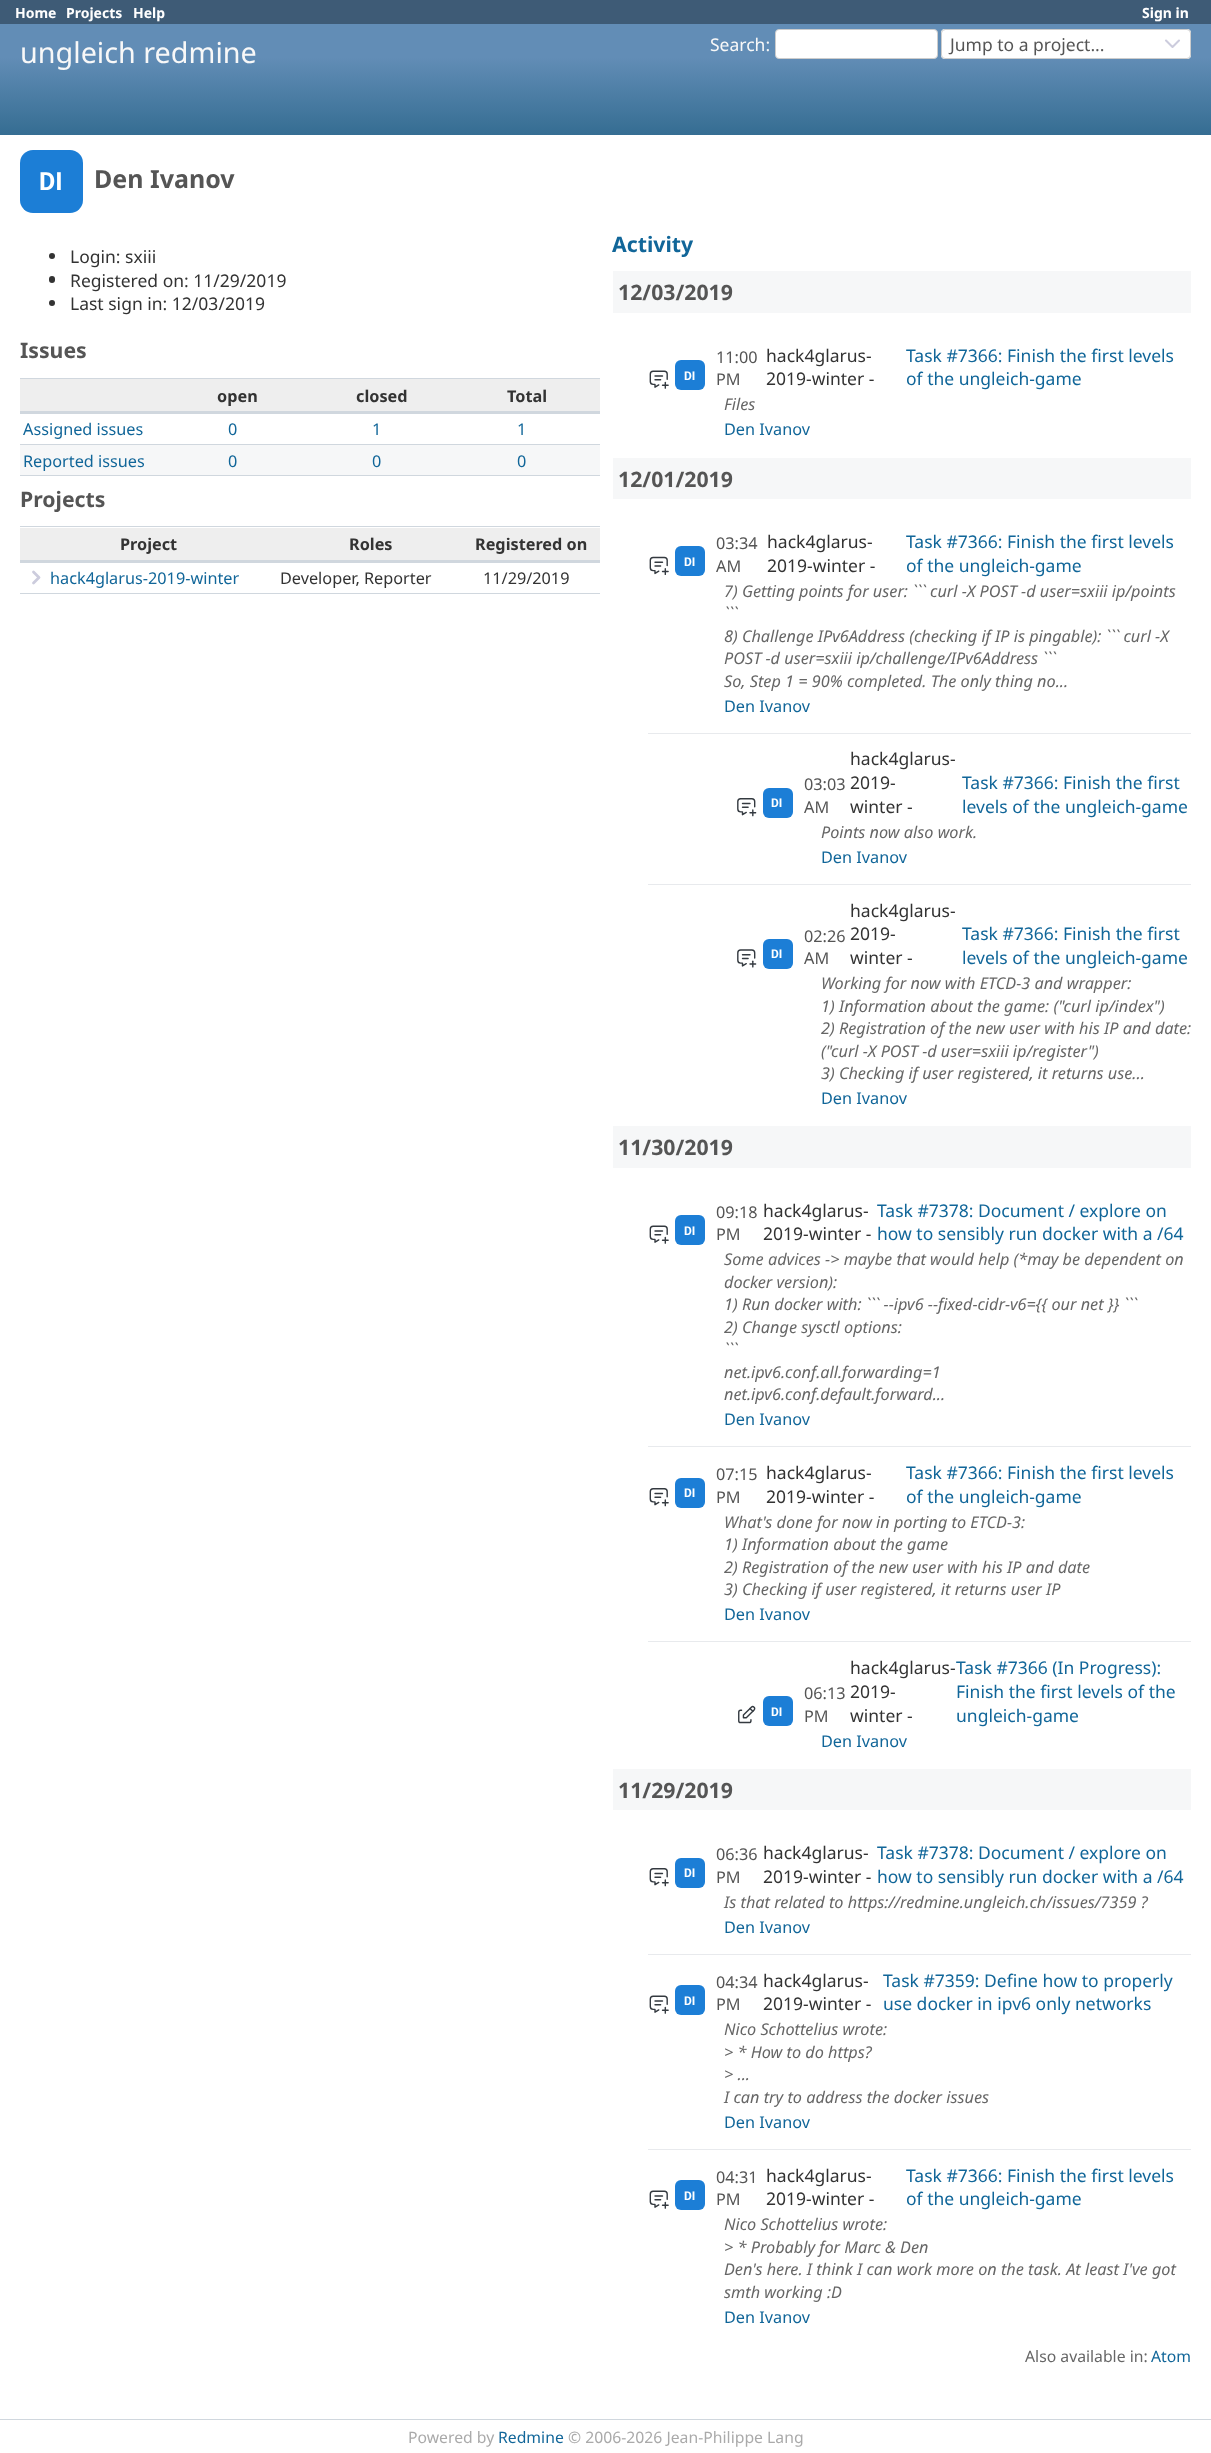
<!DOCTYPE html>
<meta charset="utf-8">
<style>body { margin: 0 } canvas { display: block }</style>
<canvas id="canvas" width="1211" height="2453"></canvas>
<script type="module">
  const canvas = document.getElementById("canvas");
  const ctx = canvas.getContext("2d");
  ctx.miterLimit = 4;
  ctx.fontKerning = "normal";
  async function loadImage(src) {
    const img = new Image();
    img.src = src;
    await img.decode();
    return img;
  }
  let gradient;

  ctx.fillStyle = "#ffffff";
  ctx.fillRect(0, 0, 1211, 2453);
  ctx.fillStyle = "#3e5b76";
  ctx.fillRect(0, 0, 1211, 24);
  ctx.font = "bold 14px Noto Sans";
  ctx.fillStyle = "#ffffff";
  ctx.fillText("Home", 15, 18);
  ctx.fillText("Projects", 66, 18);
  ctx.fillText("Help", 133, 18);
  ctx.fillText("Sign in", 1142, 18);
  gradient = ctx.createLinearGradient(606, 24, 606, 135);
  gradient.addColorStop(0.3, "#628db6");
  gradient.addColorStop(1, "#356d92");
  ctx.fillStyle = gradient;
  ctx.fillRect(0, 24, 1211, 111);
  ctx.font = "28.75px Noto Sans";
  ctx.fillStyle = "#f8f8f8";
  ctx.fillText("ungleich redmine", 20, 63);
  ctx.font = "17.5px Noto Sans";
  ctx.fillText("Search:", 710, 51);
  ctx.fillStyle = "#ffffff";
  ctx.beginPath();
  ctx.roundRect(775.5, 29.5, 162, 29, 3.5);
  ctx.fill();
  ctx.strokeStyle = "#cccccc";
  ctx.stroke();
  ctx.beginPath();
  ctx.roundRect(941, 29, 250, 30, 4);
  ctx.fill();
  ctx.beginPath();
  ctx.moveTo(1166, 40.5);
  ctx.lineTo(1172.5, 47);
  ctx.lineTo(1179, 40.5);
  ctx.strokeStyle = "#ccccdd";
  ctx.lineWidth = 2.1;
  ctx.lineCap = "round";
  ctx.lineJoin = "round";
  ctx.stroke();
  ctx.beginPath();
  ctx.roundRect(941.5, 29.5, 249, 29, 3.5);
  ctx.strokeStyle = "#cccccc";
  ctx.lineWidth = 1;
  ctx.lineJoin = "miter";
  ctx.stroke();
  ctx.fillStyle = "#555555";
  ctx.fillText("Jump to a project...", 950, 51);
  ctx.fillStyle = "#1c7ed6";
  ctx.beginPath();
  ctx.roundRect(20, 150, 63, 63, 13);
  ctx.fill();
  ctx.font = "bold 25px Roboto";
  ctx.fillStyle = "#ffffff";
  ctx.fillText("DI", 39, 190);
  ctx.font = "bold 25px Noto Sans";
  ctx.fillStyle = "#555555";
  ctx.fillText("Den Ivanov", 94, 188);
  ctx.fillStyle = "#333333";
  ctx.beginPath();
  ctx.arc(52, 256, 3, 0, Math.PI * 2);
  ctx.fill();
  ctx.font = "17.5px Noto Sans";
  ctx.fillText("Login: sxiii", 70, 263);
  ctx.beginPath();
  ctx.roundRect(49, 276, 6, 7, 3);
  ctx.fill();
  ctx.fillText("Registered on: 11/29/2019", 70, 287);
  ctx.beginPath();
  ctx.arc(52, 303, 3, 0, Math.PI * 2);
  ctx.fill();
  ctx.fillText("Last sign in: 12/03/2019", 70, 310);
  ctx.font = "bold 21.25px Noto Sans";
  ctx.fillStyle = "#555555";
  ctx.fillText("Issues", 20, 358);
  ctx.fillStyle = "#d0d7de";
  ctx.fillRect(20, 378, 580, 1);
  ctx.fillRect(20, 475, 580, 1);
  ctx.fillStyle = "#eeeeee";
  ctx.fillRect(20, 379, 580, 32);
  ctx.font = "bold 16.25px Noto Sans";
  ctx.fillStyle = "#333333";
  ctx.fillText("open", 217, 402);
  ctx.fillText("closed", 356, 402);
  ctx.fillStyle = "#d0d7de";
  ctx.fillRect(20, 411, 580, 3);
  ctx.fillStyle = "#333333";
  ctx.fillText("Total", 507, 402);
  ctx.font = "16.25px Noto Sans";
  ctx.fillStyle = "#116699";
  ctx.fillText("Assigned issues", 23, 435);
  ctx.fillText("0", 228, 435);
  ctx.fillText("1", 372, 435);
  ctx.fillText("1", 517, 435);
  ctx.fillStyle = "#f6f7f8";
  ctx.fillRect(20, 445, 580, 30);
  ctx.fillStyle = "#116699";
  ctx.fillText("Reported issues", 23, 467);
  ctx.fillText("0", 228, 467);
  ctx.fillText("0", 372, 467);
  ctx.fillStyle = "#d0d7de";
  ctx.fillRect(20, 444, 580, 1);
  ctx.fillStyle = "#116699";
  ctx.fillText("0", 517, 467);
  ctx.font = "bold 21.25px Noto Sans";
  ctx.fillStyle = "#555555";
  ctx.fillText("Projects", 20, 507);
  ctx.fillStyle = "#d0d7de";
  ctx.fillRect(20, 526, 580, 1);
  ctx.fillRect(20, 593, 580, 1);
  ctx.fillStyle = "#eeeeee";
  ctx.fillRect(20, 528, 580, 32);
  ctx.font = "bold 16.25px Noto Sans";
  ctx.fillStyle = "#333333";
  ctx.fillText("Project", 120, 550);
  ctx.fillText("Roles", 349, 550);
  ctx.fillStyle = "#d0d7de";
  ctx.fillRect(20, 560, 580, 3);
  ctx.fillStyle = "#333333";
  ctx.fillText("Registered on", 475, 550);
  ctx.beginPath();
  ctx.moveTo(33.5, 583);
  ctx.lineTo(39, 577.5);
  ctx.lineTo(33.5, 572);
  ctx.strokeStyle = "#ccccdd";
  ctx.lineWidth = 2.8;
  ctx.lineJoin = "round";
  ctx.stroke();
  ctx.font = "16.25px Noto Sans";
  ctx.fillStyle = "#116699";
  ctx.fillText("hack4glarus-2019-winter", 50, 584);
  ctx.fillStyle = "#333333";
  ctx.fillText("Developer, Reporter", 280, 584);
  ctx.fillText("11/29/2019", 483, 584);
  ctx.font = "bold 21.25px Noto Sans";
  ctx.fillStyle = "#116699";
  ctx.fillText("Activity", 612, 252);
  ctx.fillStyle = "#f6f7f8";
  ctx.fillRect(613, 271, 578, 42);
  ctx.fillStyle = "#555555";
  ctx.fillText("12/03/2019", 618, 300);
  ctx.drawImage(await loadImage("img1.png"), 649, 370, 20, 19);
  ctx.fillStyle = "#1c7ed6";
  ctx.beginPath();
  ctx.roundRect(675, 360, 30, 30, 6);
  ctx.fill();
  ctx.font = "bold 12px Roboto";
  ctx.fillStyle = "#ffffff";
  ctx.fillText("DI", 684, 380);
  ctx.font = "16.25px Noto Sans";
  ctx.fillStyle = "#555555";
  ctx.fillText("11:00", 716, 363);
  ctx.fillText("PM", 716, 385);
  ctx.font = "17.5px Noto Sans";
  ctx.fillStyle = "#333333";
  ctx.fillText("hack4glarus-", 766, 362);
  ctx.fillText("2019-winter -", 766, 385);
  ctx.fillStyle = "#116699";
  ctx.fillText("Task #7366: Finish the first levels", 906, 362);
  ctx.fillText("of the ungleich-game", 906, 385);
  ctx.font = "italic 16.25px Noto Sans";
  ctx.fillStyle = "#666666";
  ctx.fillText("Files", 724, 410);
  ctx.font = "16.25px Noto Sans";
  ctx.fillStyle = "#116699";
  ctx.fillText("Den Ivanov", 724, 435);
  ctx.fillStyle = "#f6f7f8";
  ctx.fillRect(613, 458, 578, 41);
  ctx.font = "bold 21.25px Noto Sans";
  ctx.fillStyle = "#555555";
  ctx.fillText("12/01/2019", 618, 487);
  ctx.drawImage(await loadImage("img2.png"), 649, 556, 20, 19);
  ctx.fillStyle = "#1c7ed6";
  ctx.beginPath();
  ctx.roundRect(675, 546, 30, 30, 6);
  ctx.fill();
  ctx.font = "bold 12px Roboto";
  ctx.fillStyle = "#ffffff";
  ctx.fillText("DI", 684, 566);
  ctx.font = "16.25px Noto Sans";
  ctx.fillStyle = "#555555";
  ctx.fillText("03:34", 716, 549);
  ctx.fillText("AM", 716, 572);
  ctx.font = "17.5px Noto Sans";
  ctx.fillStyle = "#333333";
  ctx.fillText("hack4glarus-", 767, 548);
  ctx.fillText("2019-winter -", 767, 572);
  ctx.fillStyle = "#116699";
  ctx.fillText("Task #7366: Finish the first levels", 906, 548);
  ctx.fillText("of the ungleich-game", 906, 572);
  ctx.font = "italic 16.25px Noto Sans";
  ctx.fillStyle = "#666666";
  ctx.fillText("7) Getting points for user: ``` curl -X POST -d user=sxiii ip/points", 724, 597);
  ctx.fillText("```", 724, 619);
  ctx.fillText("8) Challenge IPv6Address (checking if IP is pingable): ``` curl -X", 724, 642);
  ctx.fillText("POST -d user=sxiii ip/challenge/IPv6Address ```", 724, 664);
  ctx.fillText("So, Step 1 = 90% completed. The only thing no...", 724, 687);
  ctx.font = "16.25px Noto Sans";
  ctx.fillStyle = "#116699";
  ctx.fillText("Den Ivanov", 724, 712);
  ctx.fillStyle = "#e8eaed";
  ctx.fillRect(648, 733, 543, 1);
  ctx.drawImage(await loadImage("img3.png"), 737, 798, 20, 19);
  ctx.fillStyle = "#1c7ed6";
  ctx.beginPath();
  ctx.roundRect(763, 788, 30, 30, 6);
  ctx.fill();
  ctx.font = "bold 12px Roboto";
  ctx.fillStyle = "#ffffff";
  ctx.fillText("DI", 771, 807);
  ctx.font = "16.25px Noto Sans";
  ctx.fillStyle = "#555555";
  ctx.fillText("03:03", 804, 790);
  ctx.fillText("AM", 804, 813);
  ctx.font = "17.5px Noto Sans";
  ctx.fillStyle = "#333333";
  ctx.fillText("hack4glarus-", 850, 765);
  ctx.fillText("2019-", 850, 789);
  ctx.fillText("winter -", 850, 813);
  ctx.fillStyle = "#116699";
  ctx.fillText("Task #7366: Finish the first", 962, 789);
  ctx.fillText("levels of the ungleich-game", 962, 813);
  ctx.font = "italic 16.25px Noto Sans";
  ctx.fillStyle = "#666666";
  ctx.fillText("Points now also work.", 821, 838);
  ctx.font = "16.25px Noto Sans";
  ctx.fillStyle = "#116699";
  ctx.fillText("Den Ivanov", 821, 863);
  ctx.fillStyle = "#e8eaed";
  ctx.fillRect(648, 884, 543, 1);
  ctx.drawImage(await loadImage("img4.png"), 737, 949, 20, 19);
  ctx.fillStyle = "#1c7ed6";
  ctx.beginPath();
  ctx.roundRect(763, 939, 30, 30, 6);
  ctx.fill();
  ctx.font = "bold 12px Roboto";
  ctx.fillStyle = "#ffffff";
  ctx.fillText("DI", 771, 958);
  ctx.font = "16.25px Noto Sans";
  ctx.fillStyle = "#555555";
  ctx.fillText("02:26", 804, 942);
  ctx.fillText("AM", 804, 964);
  ctx.font = "17.5px Noto Sans";
  ctx.fillStyle = "#333333";
  ctx.fillText("hack4glarus-", 850, 917);
  ctx.fillText("2019-", 850, 940);
  ctx.fillText("winter -", 850, 964);
  ctx.fillStyle = "#116699";
  ctx.fillText("Task #7366: Finish the first", 962, 940);
  ctx.fillText("levels of the ungleich-game", 962, 964);
  ctx.font = "italic 16.25px Noto Sans";
  ctx.fillStyle = "#666666";
  ctx.fillText("Working for now with ETCD-3 and wrapper:", 821, 989);
  ctx.fillText("1) Information about the game: (\"curl ip/index\")", 821, 1012);
  ctx.fillText("2) Registration of the new user with his IP and date:", 821, 1034);
  ctx.fillText("(\"curl -X POST -d user=sxiii ip/register\")", 821, 1057);
  ctx.fillText("3) Checking if user registered, it returns use...", 821, 1079);
  ctx.font = "16.25px Noto Sans";
  ctx.fillStyle = "#116699";
  ctx.fillText("Den Ivanov", 821, 1104);
  ctx.fillStyle = "#f6f7f8";
  ctx.fillRect(613, 1126, 578, 42);
  ctx.font = "bold 21.25px Noto Sans";
  ctx.fillStyle = "#555555";
  ctx.fillText("11/30/2019", 618, 1155);
  ctx.drawImage(await loadImage("img1.png"), 649, 1225, 20, 19);
  ctx.fillStyle = "#1c7ed6";
  ctx.beginPath();
  ctx.roundRect(675, 1215, 30, 30, 6);
  ctx.fill();
  ctx.font = "bold 12px Roboto";
  ctx.fillStyle = "#ffffff";
  ctx.fillText("DI", 684, 1235);
  ctx.font = "16.25px Noto Sans";
  ctx.fillStyle = "#555555";
  ctx.fillText("09:18", 716, 1218);
  ctx.fillText("PM", 716, 1240);
  ctx.font = "17.5px Noto Sans";
  ctx.fillStyle = "#333333";
  ctx.fillText("hack4glarus-", 763, 1217);
  ctx.fillText("2019-winter -", 763, 1240);
  ctx.fillStyle = "#116699";
  ctx.fillText("Task #7378: Document / explore on", 877, 1217);
  ctx.fillText("how to sensibly run docker with a /64", 877, 1240);
  ctx.font = "italic 16.25px Noto Sans";
  ctx.fillStyle = "#666666";
  ctx.fillText("Some advices -> maybe that would help (*may be dependent on", 724, 1265);
  ctx.fillText("docker version):", 724, 1288);
  ctx.fillText("1) Run docker with: ``` --ipv6 --fixed-cidr-v6={{ our net }} ```", 724, 1310);
  ctx.fillText("2) Change sysctl options:", 724, 1333);
  ctx.fillText("```", 724, 1355);
  ctx.fillText("net.ipv6.conf.all.forwarding=1", 724, 1378);
  ctx.fillText("net.ipv6.conf.default.forward...", 724, 1400);
  ctx.font = "16.25px Noto Sans";
  ctx.fillStyle = "#116699";
  ctx.fillText("Den Ivanov", 724, 1425);
  ctx.fillStyle = "#e8eaed";
  ctx.fillRect(648, 1446, 543, 1);
  ctx.drawImage(await loadImage("img5.png"), 649, 1488, 20, 19);
  ctx.fillStyle = "#1c7ed6";
  ctx.beginPath();
  ctx.roundRect(675, 1478, 30, 30, 6);
  ctx.fill();
  ctx.font = "bold 12px Roboto";
  ctx.fillStyle = "#ffffff";
  ctx.fillText("DI", 684, 1497);
  ctx.font = "16.25px Noto Sans";
  ctx.fillStyle = "#555555";
  ctx.fillText("07:15", 716, 1480);
  ctx.fillText("PM", 716, 1503);
  ctx.font = "17.5px Noto Sans";
  ctx.fillStyle = "#333333";
  ctx.fillText("hack4glarus-", 766, 1479);
  ctx.fillText("2019-winter -", 766, 1503);
  ctx.fillStyle = "#116699";
  ctx.fillText("Task #7366: Finish the first levels", 906, 1479);
  ctx.fillText("of the ungleich-game", 906, 1503);
  ctx.font = "italic 16.25px Noto Sans";
  ctx.fillStyle = "#666666";
  ctx.fillText("What's done for now in porting to ETCD-3:", 724, 1528);
  ctx.fillText("1) Information about the game", 724, 1550);
  ctx.fillText("2) Registration of the new user with his IP and date", 724, 1573);
  ctx.fillText("3) Checking if user registered, it returns user IP", 724, 1595);
  ctx.font = "16.25px Noto Sans";
  ctx.fillStyle = "#116699";
  ctx.fillText("Den Ivanov", 724, 1620);
  ctx.fillStyle = "#e8eaed";
  ctx.fillRect(648, 1641, 543, 1);
  ctx.drawImage(await loadImage("img6.png"), 738, 1705, 18, 19);
  ctx.fillStyle = "#1c7ed6";
  ctx.beginPath();
  ctx.roundRect(763, 1696, 30, 30, 6);
  ctx.fill();
  ctx.font = "bold 12px Roboto";
  ctx.fillStyle = "#ffffff";
  ctx.fillText("DI", 771, 1716);
  ctx.font = "16.25px Noto Sans";
  ctx.fillStyle = "#555555";
  ctx.fillText("06:13", 804, 1699);
  ctx.fillText("PM", 804, 1722);
  ctx.font = "17.5px Noto Sans";
  ctx.fillStyle = "#333333";
  ctx.fillText("hack4glarus-", 850, 1674);
  ctx.fillText("2019-", 850, 1698);
  ctx.fillText("winter -", 850, 1722);
  ctx.fillStyle = "#116699";
  ctx.fillText("Task #7366 (In Progress):", 956, 1674);
  ctx.fillText("Finish the first levels of the", 956, 1698);
  ctx.fillText("ungleich-game", 956, 1722);
  ctx.font = "16.25px Noto Sans";
  ctx.fillText("Den Ivanov", 821, 1747);
  ctx.fillStyle = "#f6f7f8";
  ctx.fillRect(613, 1769, 578, 41);
  ctx.font = "bold 21.25px Noto Sans";
  ctx.fillStyle = "#555555";
  ctx.fillText("11/29/2019", 618, 1798);
  ctx.drawImage(await loadImage("img5.png"), 649, 1868, 20, 19);
  ctx.fillStyle = "#1c7ed6";
  ctx.beginPath();
  ctx.roundRect(675, 1858, 30, 30, 6);
  ctx.fill();
  ctx.font = "bold 12px Roboto";
  ctx.fillStyle = "#ffffff";
  ctx.fillText("DI", 684, 1877);
  ctx.font = "16.25px Noto Sans";
  ctx.fillStyle = "#555555";
  ctx.fillText("06:36", 716, 1860);
  ctx.fillText("PM", 716, 1883);
  ctx.font = "17.5px Noto Sans";
  ctx.fillStyle = "#333333";
  ctx.fillText("hack4glarus-", 763, 1859);
  ctx.fillText("2019-winter -", 763, 1883);
  ctx.fillStyle = "#116699";
  ctx.fillText("Task #7378: Document / explore on", 877, 1859);
  ctx.fillText("how to sensibly run docker with a /64", 877, 1883);
  ctx.font = "italic 16.25px Noto Sans";
  ctx.fillStyle = "#666666";
  ctx.fillText("Is that related to https://redmine.ungleich.ch/issues/7359 ?", 724, 1908);
  ctx.font = "16.25px Noto Sans";
  ctx.fillStyle = "#116699";
  ctx.fillText("Den Ivanov", 724, 1933);
  ctx.fillStyle = "#e8eaed";
  ctx.fillRect(648, 1954, 543, 1);
  ctx.drawImage(await loadImage("img1.png"), 649, 1995, 20, 19);
  ctx.fillStyle = "#1c7ed6";
  ctx.beginPath();
  ctx.roundRect(675, 1985, 30, 30, 6);
  ctx.fill();
  ctx.font = "bold 12px Roboto";
  ctx.fillStyle = "#ffffff";
  ctx.fillText("DI", 684, 2005);
  ctx.font = "16.25px Noto Sans";
  ctx.fillStyle = "#555555";
  ctx.fillText("04:34", 716, 1988);
  ctx.fillText("PM", 716, 2010);
  ctx.font = "17.5px Noto Sans";
  ctx.fillStyle = "#333333";
  ctx.fillText("hack4glarus-", 763, 1987);
  ctx.fillText("2019-winter -", 763, 2010);
  ctx.fillStyle = "#116699";
  ctx.fillText("Task #7359: Define how to properly", 883, 1987);
  ctx.fillText("use docker in ipv6 only networks", 883, 2010);
  ctx.font = "italic 16.25px Noto Sans";
  ctx.fillStyle = "#666666";
  ctx.fillText("Nico Schottelius wrote:", 724, 2035);
  ctx.fillText("> * How to do https?", 724, 2058);
  ctx.fillText("> ...", 724, 2080);
  ctx.fillText("I can try to address the docker issues", 724, 2103);
  ctx.font = "16.25px Noto Sans";
  ctx.fillStyle = "#116699";
  ctx.fillText("Den Ivanov", 724, 2128);
  ctx.fillStyle = "#e8eaed";
  ctx.fillRect(648, 2149, 543, 1);
  ctx.drawImage(await loadImage("img1.png"), 649, 2190, 20, 19);
  ctx.fillStyle = "#1c7ed6";
  ctx.beginPath();
  ctx.roundRect(675, 2180, 30, 30, 6);
  ctx.fill();
  ctx.font = "bold 12px Roboto";
  ctx.fillStyle = "#ffffff";
  ctx.fillText("DI", 684, 2200);
  ctx.font = "16.25px Noto Sans";
  ctx.fillStyle = "#555555";
  ctx.fillText("04:31", 716, 2183);
  ctx.fillText("PM", 716, 2205);
  ctx.font = "17.5px Noto Sans";
  ctx.fillStyle = "#333333";
  ctx.fillText("hack4glarus-", 766, 2182);
  ctx.fillText("2019-winter -", 766, 2205);
  ctx.fillStyle = "#116699";
  ctx.fillText("Task #7366: Finish the first levels", 906, 2182);
  ctx.fillText("of the ungleich-game", 906, 2205);
  ctx.font = "italic 16.25px Noto Sans";
  ctx.fillStyle = "#666666";
  ctx.fillText("Nico Schottelius wrote:", 724, 2230);
  ctx.fillText("> * Probably for Marc & Den", 724, 2253);
  ctx.fillText("Den's here. I think I can work more on the task. At least I've got", 724, 2275);
  ctx.fillText("smth working :D", 724, 2298);
  ctx.font = "16.25px Noto Sans";
  ctx.fillStyle = "#116699";
  ctx.fillText("Den Ivanov", 724, 2323);
  ctx.font = "15.75px Noto Sans";
  ctx.fillStyle = "#666666";
  ctx.fillText("Also available in:", 1025, 2362);
  ctx.fillStyle = "#116699";
  ctx.fillText("Atom", 1151, 2362);
  ctx.fillStyle = "#d0d7de";
  ctx.fillRect(0, 2419, 1211, 1);
  ctx.fillStyle = "#aaaaaa";
  ctx.fillText("Powered by", 408, 2443);
  ctx.fillStyle = "#116699";
  ctx.fillText("Redmine", 498, 2443);
  ctx.fillStyle = "#aaaaaa";
  ctx.fillText("© 2006-2026 Jean-Philippe Lang", 568, 2443);
</script>
